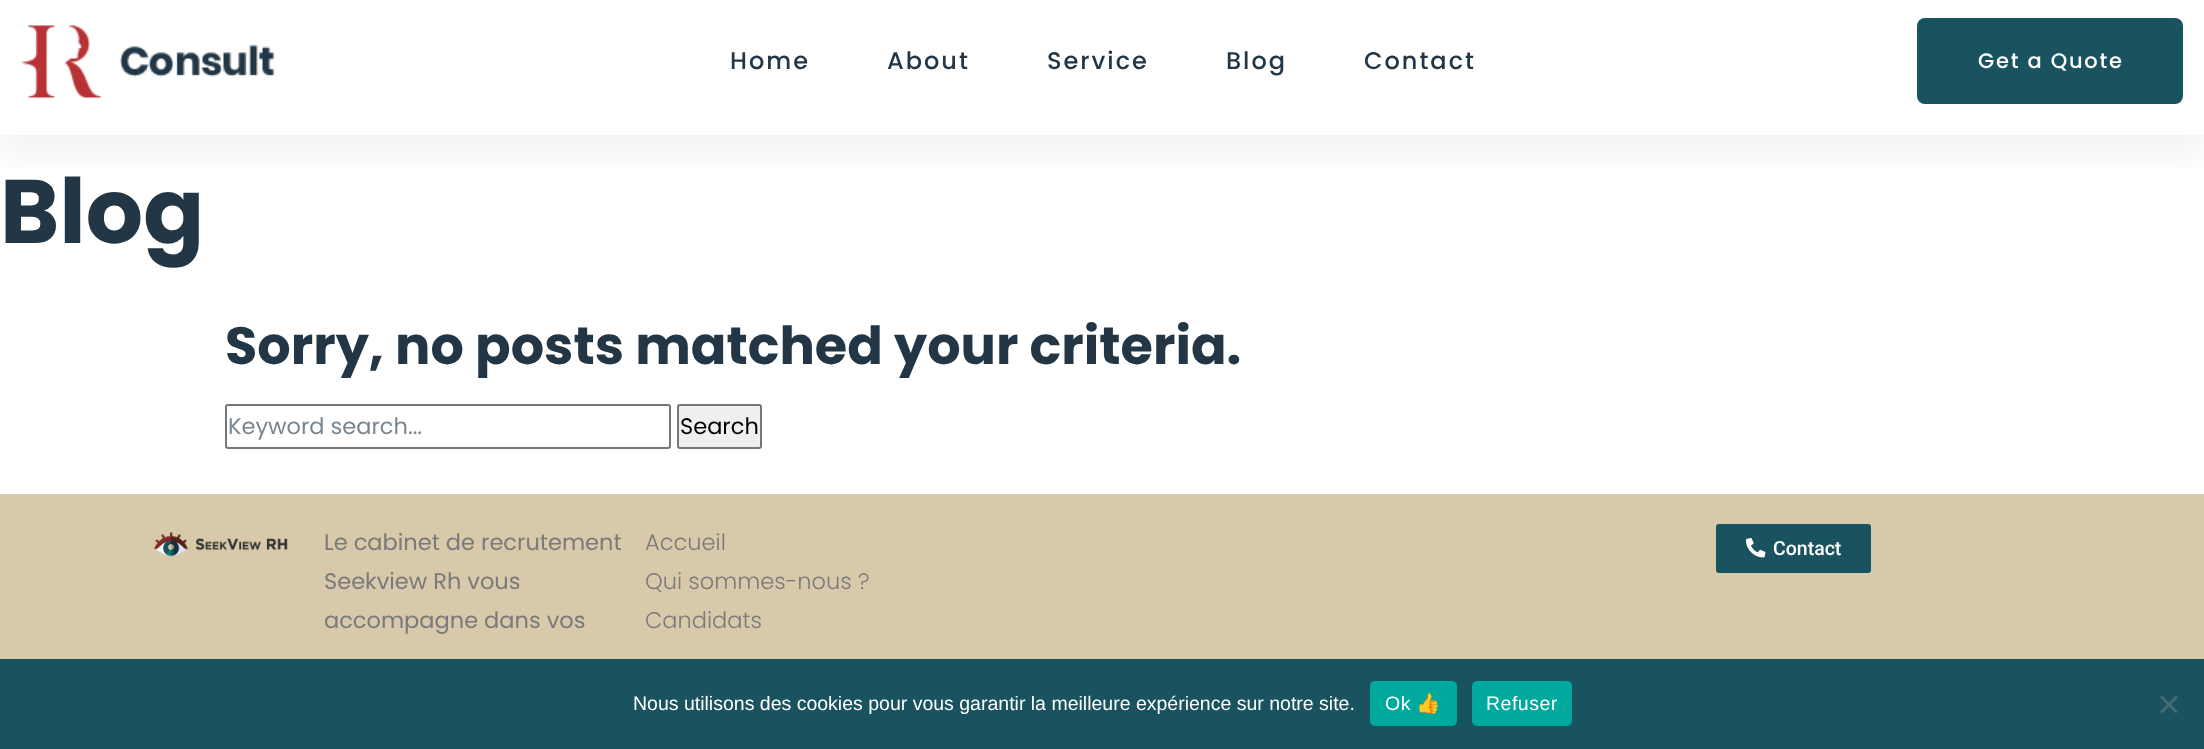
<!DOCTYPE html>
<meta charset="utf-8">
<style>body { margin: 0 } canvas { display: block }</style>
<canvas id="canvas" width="2204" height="749"></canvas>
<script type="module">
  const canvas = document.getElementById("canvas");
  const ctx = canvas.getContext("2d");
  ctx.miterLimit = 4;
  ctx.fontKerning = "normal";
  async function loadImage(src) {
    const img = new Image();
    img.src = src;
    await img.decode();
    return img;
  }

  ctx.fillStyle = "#ffffff";
  ctx.fillRect(0, 0, 2204, 749);
  ctx.save();
  ctx.beginPath();
  ctx.rect(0, 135, 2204, 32);
  ctx.clip();
  ctx.fillStyle = "rgba(53, 82, 99, 0.09)";
  ctx.filter = "blur(22.5px)";
  ctx.beginPath();
  ctx.rect(0, 3, 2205, 147);
  ctx.fill();
  ctx.filter = "none";
  ctx.restore();
  ctx.drawImage(await loadImage("img1.png"), 22, 25, 253, 73);
  ctx.letterSpacing = "2px";
  ctx.font = "500 24px Poppins";
  ctx.fillStyle = "#223645";
  ctx.fillText("Home", 730, 69);
  ctx.fillText("About", 887, 69);
  ctx.fillText("Service", 1047, 69);
  ctx.fillText("Blog", 1226, 69);
  ctx.fillText("Contact", 1364, 69);
  ctx.fillStyle = "#19535f";
  ctx.beginPath();
  ctx.roundRect(1917, 18, 266, 86, 8);
  ctx.fill();
  ctx.letterSpacing = "1.75px";
  ctx.font = "500 21px Poppins";
  ctx.fillStyle = "#ffffff";
  ctx.fillText("Get a Quote", 1978, 68);
  ctx.letterSpacing = "0px";
  ctx.font = "bold 90px Poppins";
  ctx.fillStyle = "#223645";
  ctx.fillText("Blog", 0, 243);
  ctx.font = "bold 52.5px Poppins";
  ctx.fillText("Sorry, no posts matched your criteria.", 225, 364);
  ctx.beginPath();
  ctx.roundRect(226, 405, 444, 43, 2);
  ctx.strokeStyle = "#767676";
  ctx.lineWidth = 2;
  ctx.stroke();
  ctx.font = "22.5px Poppins";
  ctx.fillStyle = "#7a868f";
  ctx.fillText("Keyword search...", 228, 434);
  ctx.fillStyle = "#efefef";
  ctx.beginPath();
  ctx.roundRect(678, 405, 83, 43, 2);
  ctx.fill();
  ctx.stroke();
  ctx.fillStyle = "#000000";
  ctx.fillText("Search", 680, 434);
  ctx.fillStyle = "#d7c9aa";
  ctx.fillRect(0, 494, 2204, 165);
  ctx.drawImage(await loadImage("img2.png"), 154, 532, 134, 25);
  ctx.fillStyle = "#7a7a7a";
  ctx.fillText("Le cabinet de recrutement", 324, 550);
  ctx.fillText("Seekview Rh vous", 324, 589);
  ctx.fillText("accompagne dans vos", 324, 628);
  ctx.font = "300 22.5px Poppins";
  ctx.fillText("Accueil", 645, 550);
  ctx.fillText("Qui sommes-nous ?", 645, 589);
  ctx.fillText("Candidats", 645, 628);
  ctx.fillStyle = "#19535f";
  ctx.beginPath();
  ctx.roundRect(1716, 524, 155, 49, 3);
  ctx.fill();
  ctx.drawImage(await loadImage("img3.png"), 1746, 538, 20, 20);
  ctx.font = "500 19.5px Roboto";
  ctx.fillStyle = "#ffffff";
  ctx.fillText("Contact", 1773, 555);
  ctx.fillStyle = "#19535f";
  ctx.fillRect(0, 659, 2204, 90);
  ctx.font = "19.5px Liberation Sans";
  ctx.fillStyle = "#ffffff";
  ctx.fillText("Nous utilisons des cookies pour vous garantir la meilleure expérience sur notre site.", 633, 710);
  ctx.fillStyle = "#00a99d";
  ctx.beginPath();
  ctx.roundRect(1370, 681, 87, 45, 5);
  ctx.fill();
  ctx.letterSpacing = "0.5px";
  ctx.fillStyle = "#ffffff";
  ctx.fillText("Ok", 1385, 710);
  ctx.font = "19.5px Noto Color Emoji";
  ctx.fillText("👍", 1416, 710);
  ctx.fillStyle = "#00a99d";
  ctx.beginPath();
  ctx.roundRect(1472, 681, 100, 45, 5);
  ctx.fill();
  ctx.font = "19.5px Liberation Sans";
  ctx.fillStyle = "#ffffff";
  ctx.fillText("Refuser", 1486, 710);
  ctx.fillStyle = "#4d6a70";
  ctx.beginPath();
  ctx.moveTo(2176, 695.5);
  ctx.lineTo(2178, 697.5);
  ctx.lineTo(2162, 713.5);
  ctx.lineTo(2160, 711.5);
  ctx.closePath();
  ctx.fill();
  ctx.beginPath();
  ctx.moveTo(2160, 697.5);
  ctx.lineTo(2162, 695.5);
  ctx.lineTo(2178, 711.5);
  ctx.lineTo(2176, 713.5);
  ctx.closePath();
  ctx.fill();
</script>
